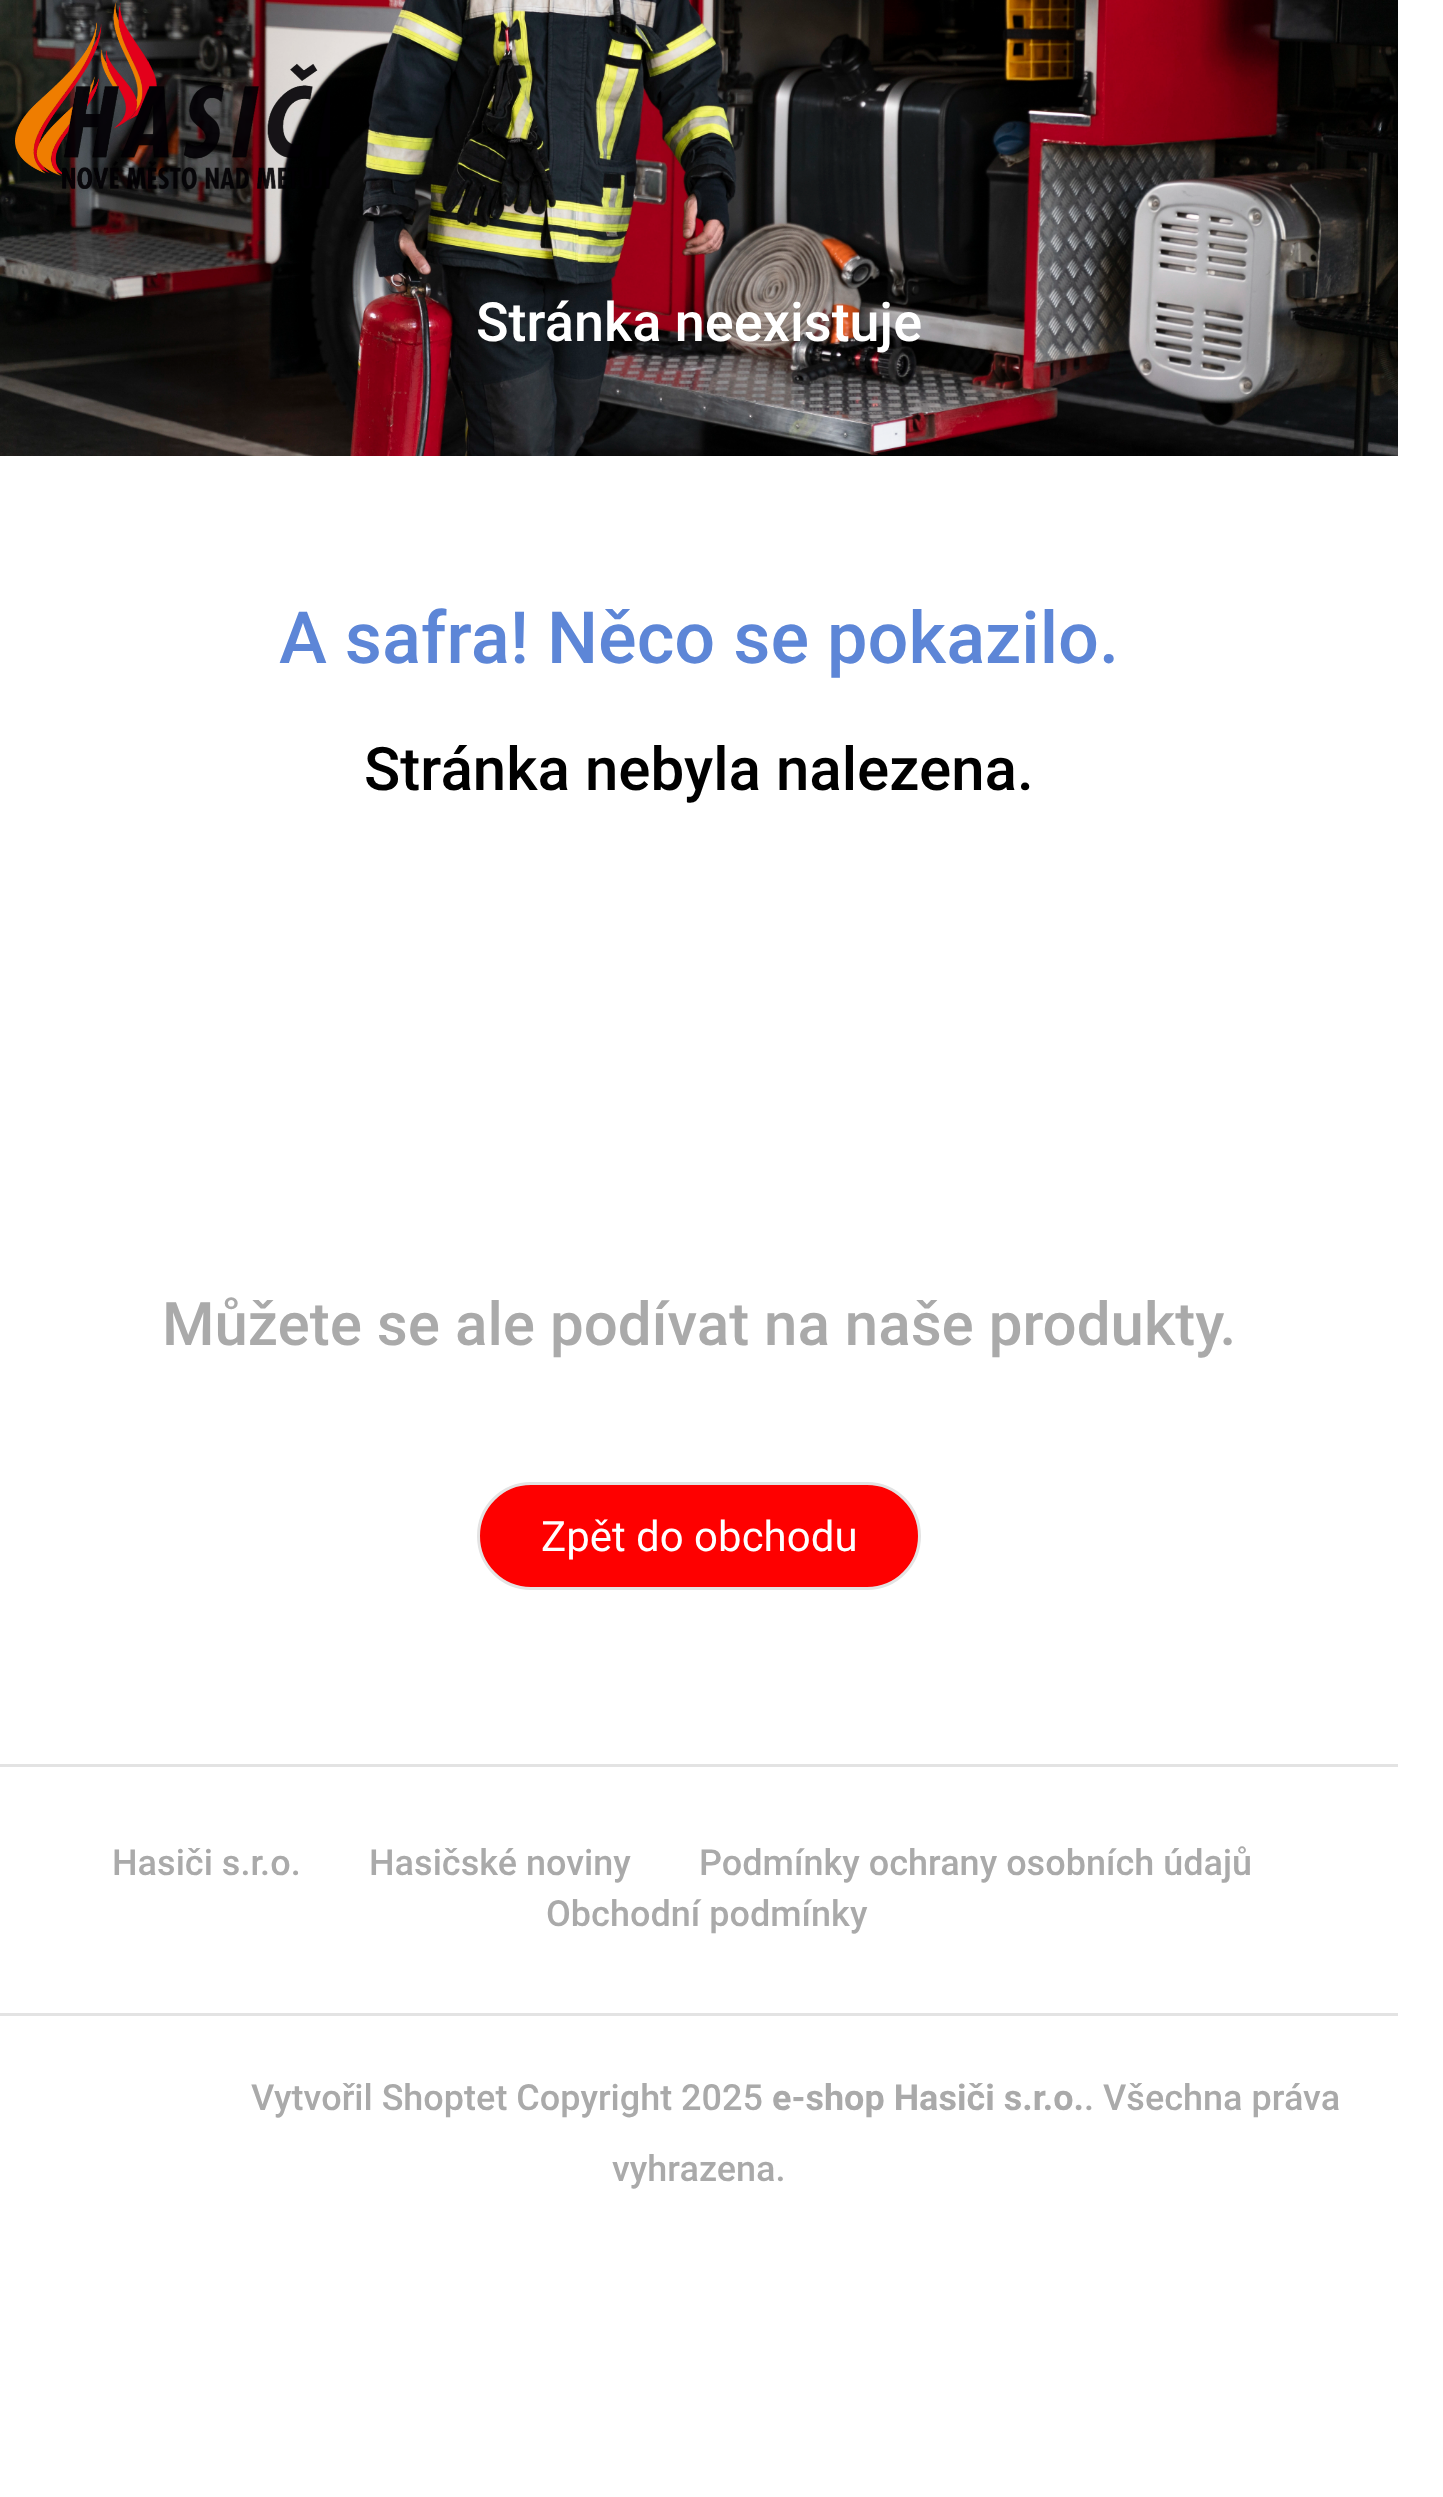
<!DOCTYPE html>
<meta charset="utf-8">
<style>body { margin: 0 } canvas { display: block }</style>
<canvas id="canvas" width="1443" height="2497"></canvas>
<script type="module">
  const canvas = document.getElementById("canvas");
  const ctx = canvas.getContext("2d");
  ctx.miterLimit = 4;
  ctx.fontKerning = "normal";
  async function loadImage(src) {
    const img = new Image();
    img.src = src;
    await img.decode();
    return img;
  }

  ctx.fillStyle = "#ffffff";
  ctx.fillRect(0, 0, 1443, 2497);
  ctx.drawImage(await loadImage("img1.png"), 0, 0, 1398, 456);
  ctx.drawImage(await loadImage("img2.png"), 15, 1, 315, 188);
  ctx.font = "500 54px Roboto";
  ctx.fillText("Stránka neexistuje", 476, 341);
  ctx.font = "500 72px Roboto";
  ctx.fillStyle = "#5d86d7";
  ctx.fillText("A safra! Něco se pokazilo.", 279, 663);
  ctx.font = "500 60px Roboto";
  ctx.fillStyle = "#000000";
  ctx.fillText("Stránka nebyla nalezena.", 364, 790);
  ctx.fillStyle = "#aaaaaa";
  ctx.fillText("Můžete se ale podívat na naše produkty.", 162, 1345);
  ctx.fillStyle = "#fe0000";
  ctx.beginPath();
  ctx.roundRect(478.5, 1483.5, 441, 105, 52.5);
  ctx.fill();
  ctx.strokeStyle = "#e3e3e3";
  ctx.lineWidth = 3;
  ctx.stroke();
  ctx.font = "42px Roboto";
  ctx.fillStyle = "#ffffff";
  ctx.fillText("Zpět do obchodu", 541, 1551);
  ctx.fillStyle = "#e3e3e3";
  ctx.fillRect(0, 1764, 1398, 3);
  ctx.font = "500 36px Roboto";
  ctx.fillStyle = "#aaaaaa";
  ctx.fillText("Hasiči s.r.o.", 112, 1875);
  ctx.fillText("Hasičské noviny", 369, 1875);
  ctx.fillText("Podmínky ochrany osobních údajů", 699, 1875);
  ctx.fillText("Obchodní podmínky", 546, 1926);
  ctx.fillStyle = "#e3e3e3";
  ctx.fillRect(0, 2013, 1398, 3);
  ctx.fillStyle = "#aaaaaa";
  ctx.fillText("Vytvořil Shoptet Copyright 2025", 251, 2110);
  ctx.font = "bold 36px Roboto";
  ctx.fillText("e-shop Hasiči s.r.o.", 772, 2110);
  ctx.font = "500 36px Roboto";
  ctx.fillText(". Všechna práva", 1084, 2110);
  ctx.fillText("vyhrazena.", 612, 2181);
</script>
